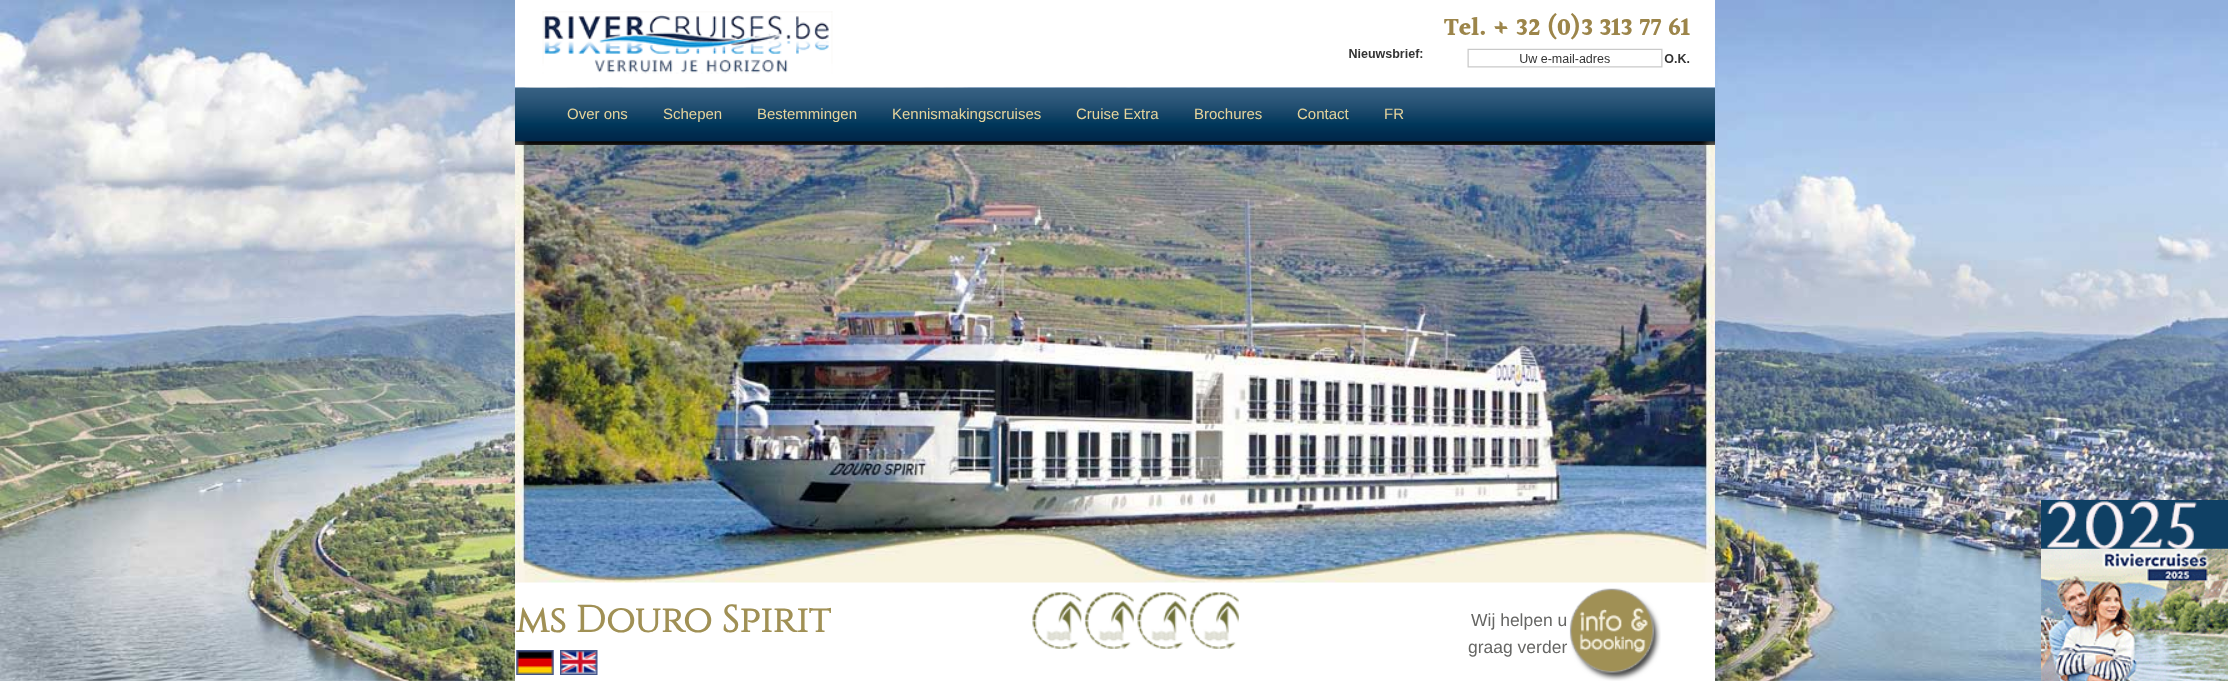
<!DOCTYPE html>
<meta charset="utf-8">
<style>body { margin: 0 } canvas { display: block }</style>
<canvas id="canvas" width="2228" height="681"></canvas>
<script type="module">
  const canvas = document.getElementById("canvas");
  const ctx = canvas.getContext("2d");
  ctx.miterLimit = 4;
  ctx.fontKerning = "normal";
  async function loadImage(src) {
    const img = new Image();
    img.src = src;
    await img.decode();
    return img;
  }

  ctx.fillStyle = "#ffffff";
  ctx.fillRect(0, 0, 2228, 681);
  ctx.drawImage(await loadImage("img1.png"), 0, 0, 2228, 681);
  ctx.drawImage(await loadImage("img3.png"), 515, 87, 1200, 58);
  ctx.drawImage(await loadImage("img2.png"), 515, 0, 1200, 88);
  ctx.font = "15px Liberation Sans";
  ctx.fillStyle = "#e5d49c";
  ctx.fillText("Over ons", 567, 119);
  ctx.fillText("Schepen", 663, 119);
  ctx.fillText("Bestemmingen", 757, 119);
  ctx.fillText("Kennismakingscruises", 892, 119);
  ctx.fillText("Cruise Extra", 1076, 119);
  ctx.fillText("Brochures", 1194, 119);
  ctx.fillText("Contact", 1297, 119);
  ctx.fillText("FR", 1384, 119);
  ctx.fillStyle = "#ffffff";
  ctx.fillRect(515, 582, 1200, 99);
  ctx.drawImage(await loadImage("img4.png"), 515, 145, 1200, 438);
  ctx.font = "bold 37.5px Cinzel";
  ctx.fillStyle = "#a09055";
  ctx.fillText("ms Douro Spirit", 516, 632);
  ctx.drawImage(await loadImage("img5.png"), 1032, 592, 207, 57);
  ctx.drawImage(await loadImage("img6.png"), 516, 650, 38, 25);
  ctx.drawImage(await loadImage("img7.png"), 560, 650, 38, 25);
  ctx.font = "17.5px Liberation Sans";
  ctx.fillStyle = "#666664";
  ctx.fillText("Wij helpen u", 1471, 626);
  ctx.fillText("graag verder", 1468, 653);
  ctx.drawImage(await loadImage("img8.png"), 1569, 588, 92, 93);
  ctx.drawImage(await loadImage("img9.png"), 2041, 500, 187, 181);
</script>
